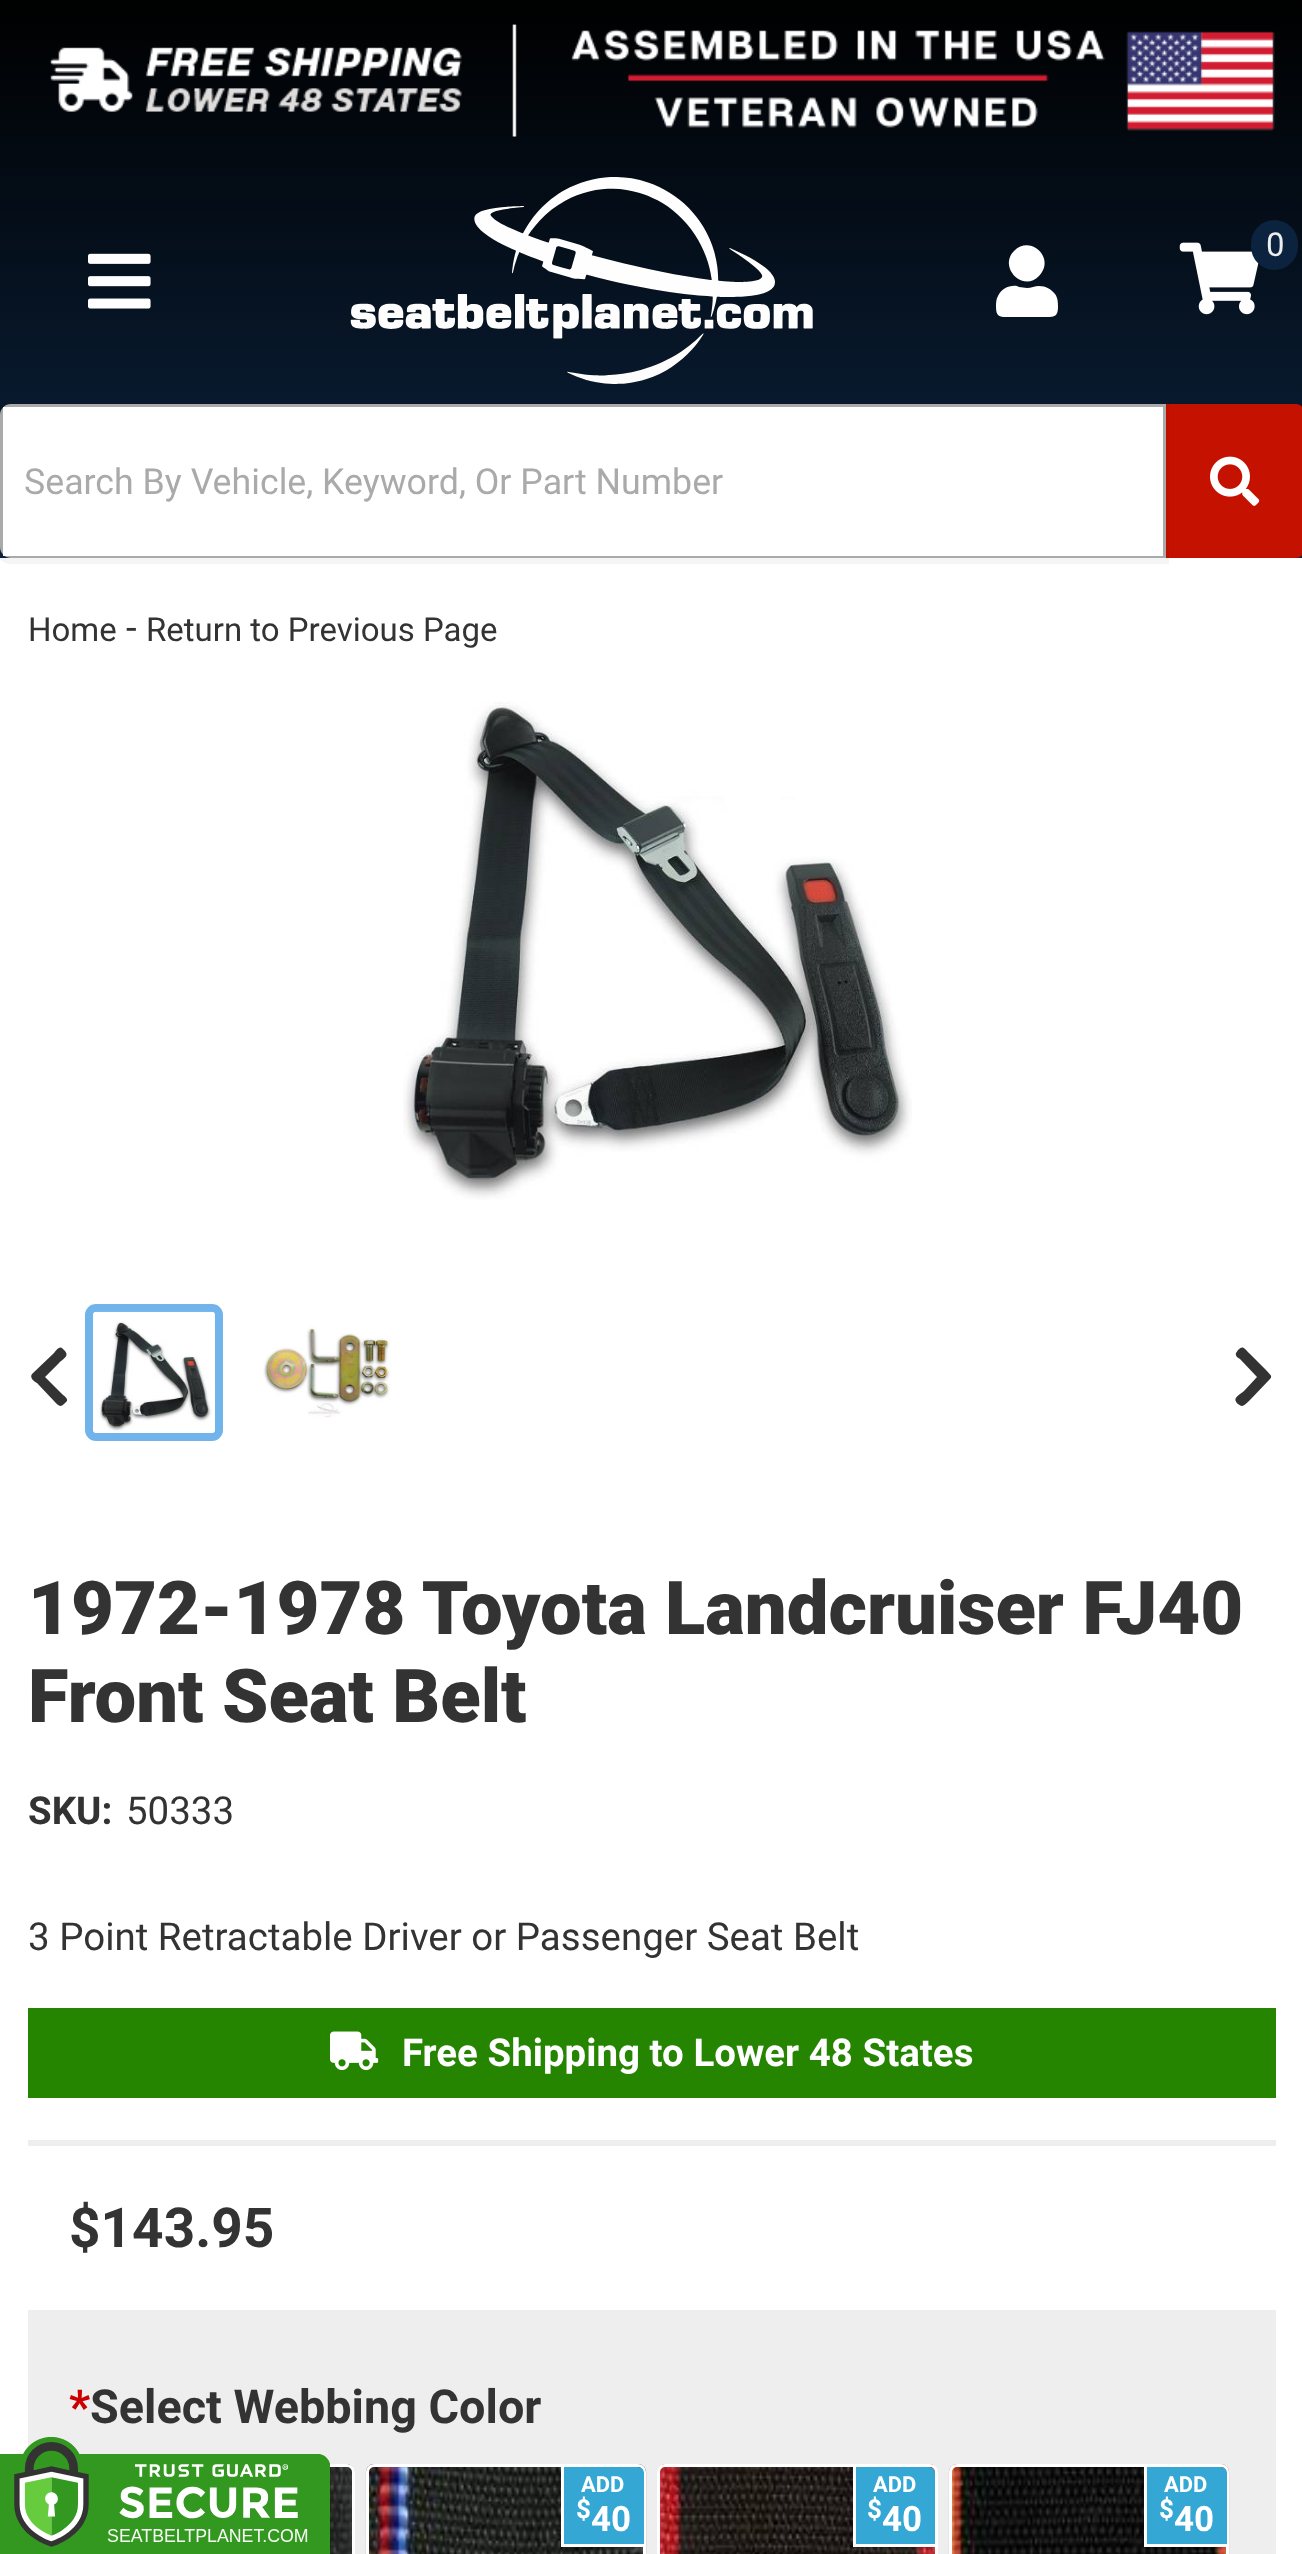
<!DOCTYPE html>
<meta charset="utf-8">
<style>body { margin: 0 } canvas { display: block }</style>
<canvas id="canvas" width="1302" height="2554"></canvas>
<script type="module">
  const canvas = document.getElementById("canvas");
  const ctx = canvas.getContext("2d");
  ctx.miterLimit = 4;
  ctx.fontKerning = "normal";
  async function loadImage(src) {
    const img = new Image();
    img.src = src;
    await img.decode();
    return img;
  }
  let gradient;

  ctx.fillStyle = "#ffffff";
  ctx.fillRect(0, 0, 1302, 2554);
  gradient = ctx.createLinearGradient(652, 0, 652, 558);
  gradient.addColorStop(0, "#000000");
  gradient.addColorStop(1, "#0b233f");
  ctx.fillStyle = gradient;
  ctx.fillRect(0, 0, 1302, 558);
  ctx.drawImage(await loadImage("img1.png"), 50, 24, 1225, 113);
  ctx.drawImage(await loadImage("img2.png"), 88, 253, 63, 56);
  ctx.drawImage(await loadImage("img3.png"), 350, 177, 463, 207);
  ctx.fillStyle = "#ffffff";
  ctx.beginPath();
  ctx.moveTo(1039, 276);
  ctx.bezierCurveTo(1023, 293, 998, 267, 1014, 251);
  ctx.bezierCurveTo(1031, 234, 1056, 259, 1039, 276);
  ctx.closePath();
  ctx.moveTo(1039, 286);
  ctx.bezierCurveTo(1046, 286, 1051, 289, 1055, 294);
  ctx.bezierCurveTo(1058, 298, 1058, 303, 1058, 307);
  ctx.bezierCurveTo(1058, 318, 1053, 317, 1043, 317);
  ctx.lineTo(1010, 317);
  ctx.bezierCurveTo(1001, 317, 996, 318, 996, 307);
  ctx.bezierCurveTo(996, 303, 996, 299, 998, 296);
  ctx.bezierCurveTo(1001, 289, 1009, 285, 1017, 286);
  ctx.lineTo(1019, 287);
  ctx.lineTo(1027, 288);
  ctx.bezierCurveTo(1031, 288, 1035, 286, 1039, 286);
  ctx.closePath();
  ctx.fill();
  ctx.drawImage(await loadImage("img4.png"), 1179, 242, 80, 73);
  ctx.fillStyle = "#0b233f";
  ctx.beginPath();
  ctx.roundRect(1251, 220, 47, 50, 23.5);
  ctx.fill();
  ctx.font = "33px Roboto";
  ctx.fillStyle = "#eeeeee";
  ctx.fillText("0", 1266, 256);
  ctx.fillStyle = "#c51200";
  ctx.beginPath();
  ctx.moveTo(1166, 404);
  ctx.lineTo(1296, 404);
  ctx.bezierCurveTo(1300.5, 404, 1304, 407.5, 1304, 412);
  ctx.lineTo(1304, 550);
  ctx.bezierCurveTo(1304, 554.5, 1300.5, 558, 1296, 558);
  ctx.lineTo(1166, 558);
  ctx.closePath();
  ctx.fill();
  ctx.fillStyle = "rgba(0, 0, 0, 0.04)";
  ctx.beginPath();
  ctx.moveTo(11, 404);
  ctx.bezierCurveTo(3, 404, -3, 410, -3, 418);
  ctx.lineTo(-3, 550);
  ctx.bezierCurveTo(-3, 558, 3, 564, 11, 564);
  ctx.lineTo(1169, 564);
  ctx.lineTo(1169, 404);
  ctx.closePath();
  ctx.moveTo(11, 404);
  ctx.bezierCurveTo(5, 404, 0, 409, 0, 415);
  ctx.lineTo(0, 547);
  ctx.bezierCurveTo(0, 553, 5, 558, 11, 558);
  ctx.lineTo(1166, 558);
  ctx.lineTo(1166, 404);
  ctx.closePath();
  ctx.fill("evenodd");
  ctx.beginPath();
  ctx.roundRect(1.5, 405.5, 1163, 151, [9.5, 0, 0, 9.5]);
  ctx.strokeStyle = "#aaaaaa";
  ctx.lineWidth = 3;
  ctx.stroke();
  ctx.fillStyle = "#ffffff";
  ctx.fillRect(3, 407, 1160, 149);
  ctx.font = "35.75px Roboto";
  ctx.fillStyle = "#aaaaaa";
  ctx.fillText("Search By Vehicle, Keyword, Or Part Number", 24, 494);
  ctx.drawImage(await loadImage("img5.png"), 1210, 456, 50, 50);
  ctx.font = "33px Roboto";
  ctx.fillStyle = "#333333";
  ctx.fillText("Home", 28, 641);
  ctx.font = "38.5px Roboto";
  ctx.fillText("-", 126, 641);
  ctx.font = "33px Roboto";
  ctx.fillText("Return to Previous Page", 146, 641);
  ctx.drawImage(await loadImage("img6.png"), 403, 701, 509, 499);
  ctx.beginPath();
  ctx.moveTo(32, 1374);
  ctx.lineTo(54, 1353);
  ctx.bezierCurveTo(58, 1348, 60, 1345, 64, 1350);
  ctx.bezierCurveTo(70, 1356, 64, 1358, 59, 1363);
  ctx.lineTo(45, 1377);
  ctx.lineTo(62, 1394);
  ctx.bezierCurveTo(64, 1396, 68, 1398, 67, 1401);
  ctx.lineTo(64, 1404);
  ctx.bezierCurveTo(60, 1408, 58, 1405, 54, 1401);
  ctx.lineTo(37, 1383);
  ctx.bezierCurveTo(35, 1382, 29, 1378, 32, 1374);
  ctx.closePath();
  ctx.fill();
  ctx.beginPath();
  ctx.roundRect(89, 1308, 130, 129, 7);
  ctx.strokeStyle = "#71b4ec";
  ctx.lineWidth = 8;
  ctx.stroke();
  ctx.drawImage(await loadImage("img7.png"), 93, 1311, 122, 122);
  ctx.drawImage(await loadImage("img8.png"), 263, 1325, 128, 93);
  ctx.beginPath();
  ctx.moveTo(1270, 1379);
  ctx.lineTo(1249, 1401);
  ctx.bezierCurveTo(1244, 1405, 1243, 1408, 1238, 1404);
  ctx.bezierCurveTo(1232, 1398, 1238, 1396, 1244, 1391);
  ctx.lineTo(1257, 1377);
  ctx.lineTo(1240, 1359);
  ctx.bezierCurveTo(1238, 1358, 1235, 1356, 1236, 1353);
  ctx.lineTo(1238, 1350);
  ctx.bezierCurveTo(1243, 1345, 1244, 1348, 1249, 1353);
  ctx.lineTo(1266, 1370);
  ctx.bezierCurveTo(1267, 1372, 1274, 1376, 1270, 1379);
  ctx.closePath();
  ctx.fill();
  ctx.font = "900 74.25px Roboto";
  ctx.fillText("1972-1978 Toyota Landcruiser FJ40", 28, 1634);
  ctx.fillText("Front Seat Belt", 28, 1722);
  ctx.font = "bold 38.5px Roboto";
  ctx.fillText("SKU:", 28, 1824);
  ctx.font = "38.5px Roboto";
  ctx.fillText("50333", 126, 1824);
  ctx.fillText("3 Point Retractable Driver or Passenger Seat Belt", 28, 1950);
  ctx.fillStyle = "#258500";
  ctx.fillRect(28, 2008, 1248, 90);
  ctx.drawImage(await loadImage("img9.png"), 330, 2031, 49, 40);
  ctx.font = "bold 38.5px Roboto";
  ctx.fillStyle = "#ffffff";
  ctx.fillText("Free Shipping to Lower 48 States", 402, 2066);
  ctx.fillStyle = "#eeeeee";
  ctx.fillRect(28, 2140, 1248, 6);
  ctx.fillRect(28, 2310, 1248, 244);
  ctx.font = "bold 55px Roboto";
  ctx.fillStyle = "#333333";
  ctx.fillText("$143.95", 69, 2247);
  ctx.font = "bold 46.75px Roboto";
  ctx.fillStyle = "#cc0000";
  ctx.fillText("*", 69, 2423);
  ctx.fillStyle = "#333333";
  ctx.fillText("Select Webbing Color", 90, 2423);
  ctx.drawImage(await loadImage("img10.png"), 330, 2464, 25, 90);
  ctx.beginPath();
  ctx.roundRect(75.5, 2465.5, 278, 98, 6.5);
  ctx.strokeStyle = "#ffffff";
  ctx.lineWidth = 3;
  ctx.stroke();
  ctx.drawImage(await loadImage("img11.png"), 365, 2464, 282, 90);
  ctx.beginPath();
  ctx.roundRect(367.5, 2465.5, 277, 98, 6.5);
  ctx.stroke();
  ctx.fillStyle = "#34a7d4";
  ctx.beginPath();
  ctx.roundRect(561, 2467, 83, 80, [0, 6, 0, 0]);
  ctx.fill();
  ctx.fillStyle = "#ffffff";
  ctx.fillRect(561, 2544, 83, 3);
  ctx.fillRect(561, 2467, 3, 80);
  ctx.font = "bold 22px Roboto";
  ctx.fillText("ADD", 581, 2492);
  ctx.font = "bold 26px Roboto";
  ctx.fillText("$", 576, 2518);
  ctx.font = "bold 35px Roboto";
  ctx.fillText("40", 591, 2531);
  ctx.drawImage(await loadImage("img12.png"), 657, 2464, 281, 90);
  ctx.beginPath();
  ctx.roundRect(658.5, 2465.5, 278, 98, 6.5);
  ctx.stroke();
  ctx.fillStyle = "#34a7d4";
  ctx.beginPath();
  ctx.roundRect(853, 2467, 82, 80, [0, 6, 0, 0]);
  ctx.fill();
  ctx.fillStyle = "#ffffff";
  ctx.fillRect(853, 2544, 82, 3);
  ctx.fillRect(853, 2467, 3, 80);
  ctx.font = "bold 22px Roboto";
  ctx.fillText("ADD", 873, 2492);
  ctx.font = "bold 26px Roboto";
  ctx.fillText("$", 867, 2518);
  ctx.font = "bold 35px Roboto";
  ctx.fillText("40", 882, 2531);
  ctx.drawImage(await loadImage("img13.png"), 948, 2464, 282, 90);
  ctx.beginPath();
  ctx.roundRect(950.5, 2465.5, 277, 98, 6.5);
  ctx.stroke();
  ctx.fillStyle = "#34a7d4";
  ctx.beginPath();
  ctx.roundRect(1144, 2467, 83, 80, [0, 6, 0, 0]);
  ctx.fill();
  ctx.fillStyle = "#ffffff";
  ctx.fillRect(1144, 2544, 83, 3);
  ctx.fillRect(1144, 2467, 3, 80);
  ctx.font = "bold 22px Roboto";
  ctx.fillText("ADD", 1164, 2492);
  ctx.font = "bold 26px Roboto";
  ctx.fillText("$", 1159, 2518);
  ctx.font = "bold 35px Roboto";
  ctx.fillText("40", 1174, 2531);
  ctx.drawImage(await loadImage("img14.png"), 0, 2437, 330, 117);
</script>
